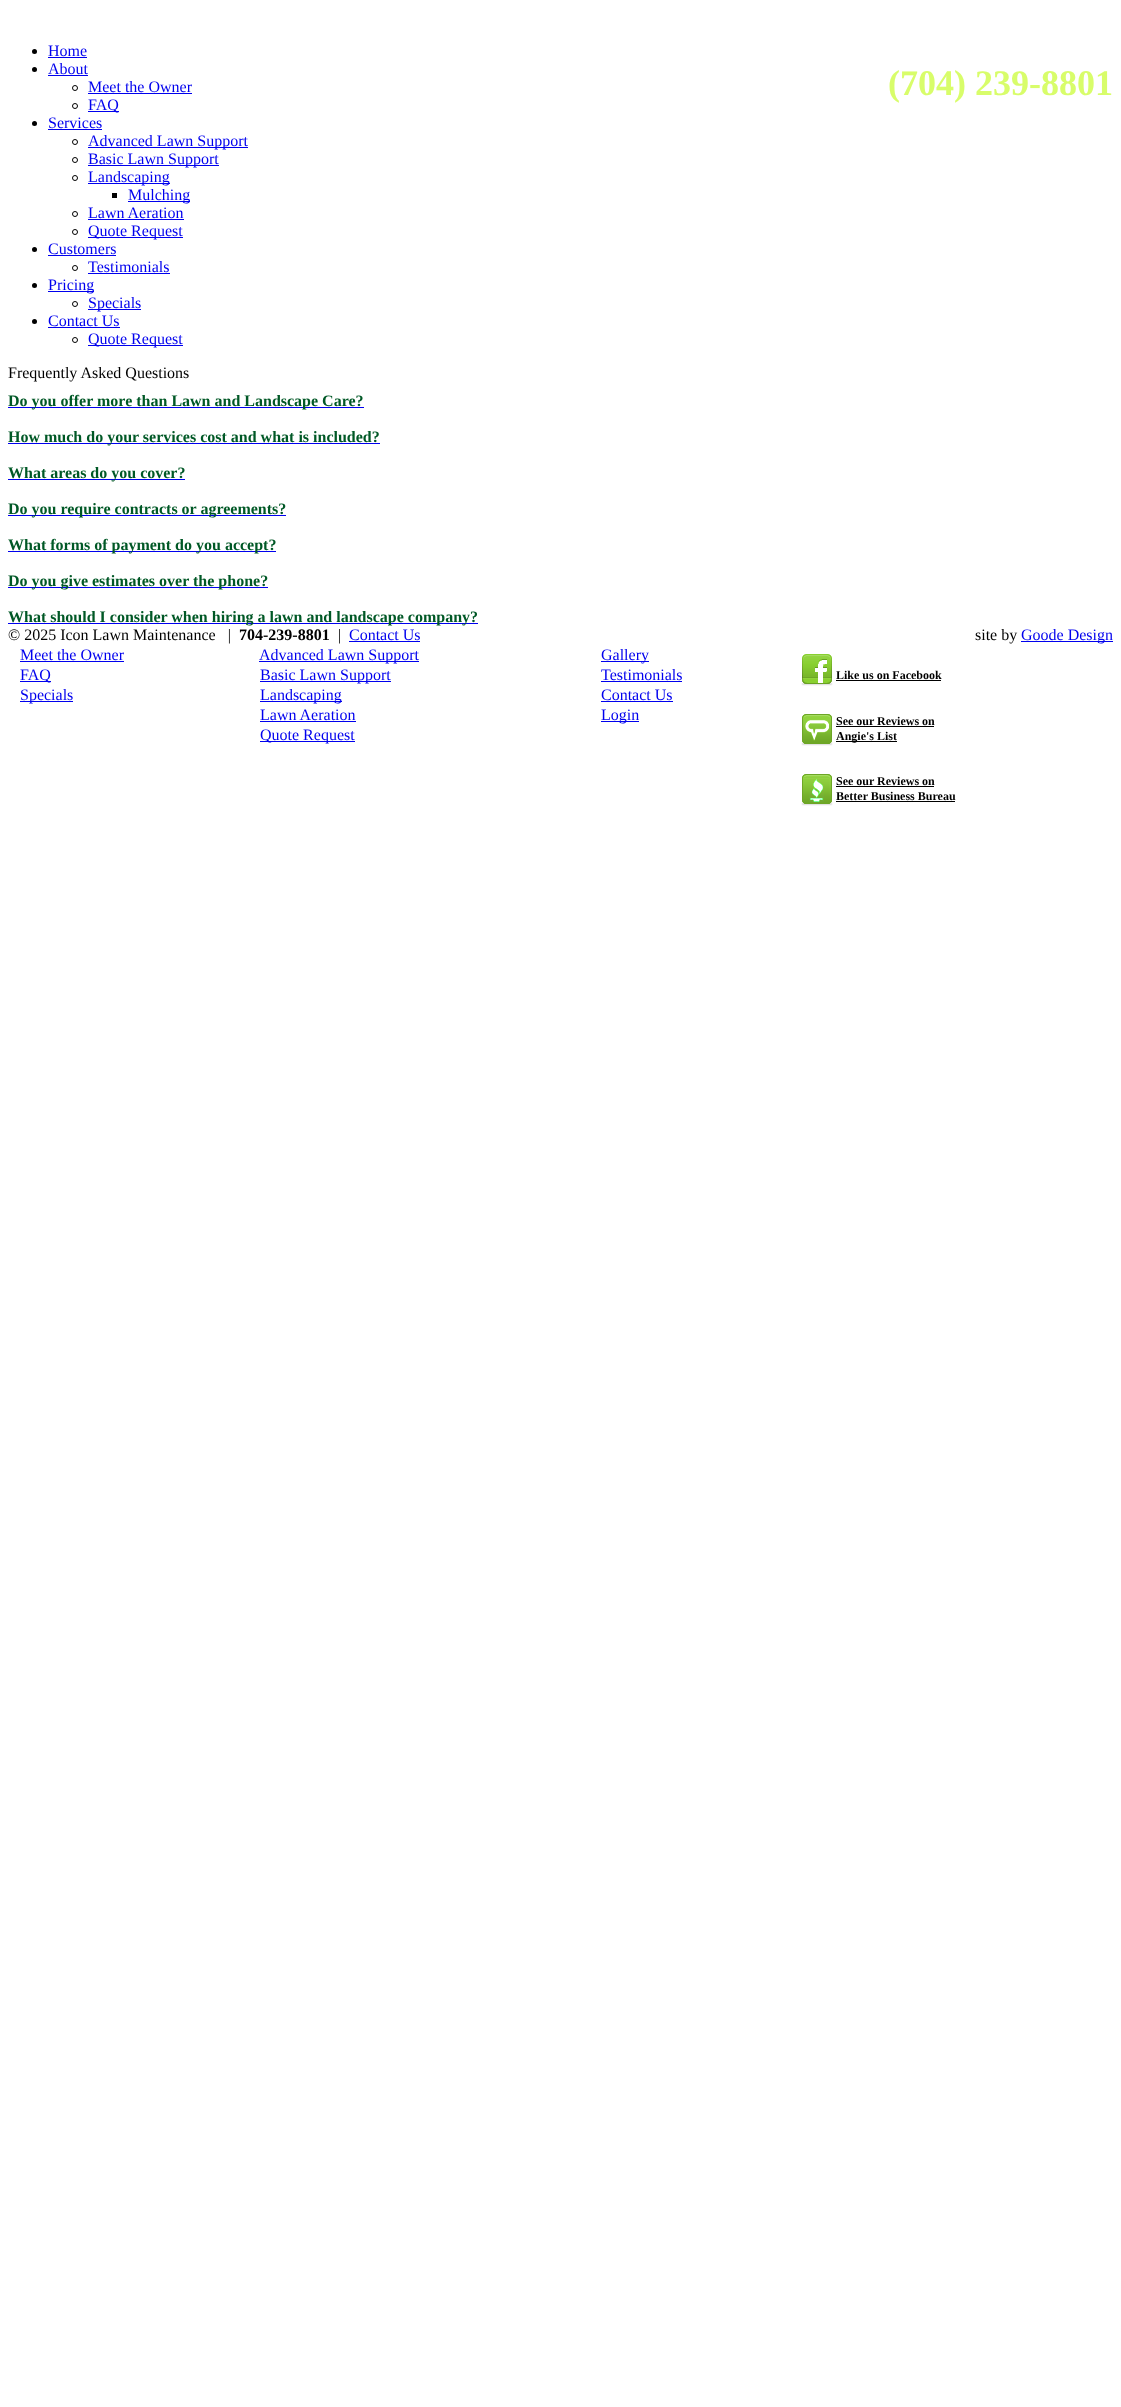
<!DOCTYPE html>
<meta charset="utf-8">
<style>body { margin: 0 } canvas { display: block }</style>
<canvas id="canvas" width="1121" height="2407"></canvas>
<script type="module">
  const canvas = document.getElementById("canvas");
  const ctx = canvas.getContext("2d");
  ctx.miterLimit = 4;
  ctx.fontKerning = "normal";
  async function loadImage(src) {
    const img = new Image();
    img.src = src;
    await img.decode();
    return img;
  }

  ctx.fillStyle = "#ffffff";
  ctx.fillRect(0, 0, 1121, 2407);
  ctx.fillStyle = "#000000";
  ctx.beginPath();
  ctx.arc(34.5, 51.5, 2.5, 0, Math.PI * 2);
  ctx.fill();
  ctx.font = "16px Liberation Serif";
  ctx.fillStyle = "#0000ee";
  ctx.fillText("Home", 48, 56);
  ctx.fillRect(48, 57, 39, 1);
  ctx.fillStyle = "#000000";
  ctx.beginPath();
  ctx.arc(34.5, 69.5, 2.5, 0, Math.PI * 2);
  ctx.fill();
  ctx.fillStyle = "#0000ee";
  ctx.fillText("About", 48, 74);
  ctx.fillRect(48, 75, 40, 1);
  ctx.beginPath();
  ctx.arc(75, 88, 2.5, 0, Math.PI * 2);
  ctx.strokeStyle = "#000000";
  ctx.stroke();
  ctx.fillText("Meet the Owner", 88, 92);
  ctx.fillRect(88, 93, 104, 1);
  ctx.beginPath();
  ctx.arc(75, 106, 2.5, 0, Math.PI * 2);
  ctx.stroke();
  ctx.fillRect(88, 111, 31, 1);
  ctx.fillText("FAQ", 88, 110);
  ctx.fillStyle = "#000000";
  ctx.beginPath();
  ctx.arc(34.5, 123.5, 2.5, 0, Math.PI * 2);
  ctx.fill();
  ctx.fillStyle = "#0000ee";
  ctx.fillText("Services", 48, 128);
  ctx.fillRect(48, 129, 54, 1);
  ctx.beginPath();
  ctx.arc(75, 142, 2.5, 0, Math.PI * 2);
  ctx.stroke();
  ctx.fillRect(88, 147, 160, 1);
  ctx.fillText("Advanced Lawn Support", 88, 146);
  ctx.beginPath();
  ctx.arc(75, 160, 2.5, 0, Math.PI * 2);
  ctx.stroke();
  ctx.fillRect(88, 165, 131, 1);
  ctx.fillText("Basic Lawn Support", 88, 164);
  ctx.beginPath();
  ctx.arc(75, 178, 2.5, 0, Math.PI * 2);
  ctx.stroke();
  ctx.fillRect(88, 183, 82, 1);
  ctx.fillText("Landscaping", 88, 182);
  ctx.fillStyle = "#000000";
  ctx.fillRect(112, 193, 5, 5);
  ctx.fillStyle = "#0000ee";
  ctx.fillRect(128, 201, 62, 1);
  ctx.fillText("Mulching", 128, 200);
  ctx.beginPath();
  ctx.arc(75, 214, 2.5, 0, Math.PI * 2);
  ctx.stroke();
  ctx.fillText("Lawn Aeration", 88, 218);
  ctx.fillRect(88, 219, 96, 1);
  ctx.beginPath();
  ctx.arc(75, 232, 2.5, 0, Math.PI * 2);
  ctx.stroke();
  ctx.fillRect(88, 237, 95, 1);
  ctx.fillText("Quote Request", 88, 236);
  ctx.fillStyle = "#000000";
  ctx.beginPath();
  ctx.arc(34.5, 249.5, 2.5, 0, Math.PI * 2);
  ctx.fill();
  ctx.fillStyle = "#0000ee";
  ctx.fillText("Customers", 48, 254);
  ctx.fillRect(48, 255, 68, 1);
  ctx.beginPath();
  ctx.arc(75, 268, 2.5, 0, Math.PI * 2);
  ctx.stroke();
  ctx.fillText("Testimonials", 88, 272);
  ctx.fillRect(88, 273, 82, 1);
  ctx.fillStyle = "#000000";
  ctx.beginPath();
  ctx.arc(34.5, 285.5, 2.5, 0, Math.PI * 2);
  ctx.fill();
  ctx.fillStyle = "#0000ee";
  ctx.fillRect(48, 291, 46, 1);
  ctx.fillText("Pricing", 48, 290);
  ctx.beginPath();
  ctx.arc(75, 304, 2.5, 0, Math.PI * 2);
  ctx.stroke();
  ctx.fillRect(88, 309, 53, 1);
  ctx.fillText("Specials", 88, 308);
  ctx.fillStyle = "#000000";
  ctx.beginPath();
  ctx.arc(34.5, 321.5, 2.5, 0, Math.PI * 2);
  ctx.fill();
  ctx.fillStyle = "#0000ee";
  ctx.fillText("Contact Us", 48, 326);
  ctx.fillRect(48, 327, 72, 1);
  ctx.beginPath();
  ctx.arc(75, 340, 2.5, 0, Math.PI * 2);
  ctx.stroke();
  ctx.fillRect(88, 345, 95, 1);
  ctx.fillText("Quote Request", 88, 344);
  ctx.font = "bold 36px Liberation Serif";
  ctx.fillStyle = "#d8fd6a";
  ctx.fillText("(704) 239-8801", 888, 95);
  ctx.font = "16px Liberation Serif";
  ctx.fillStyle = "#000000";
  ctx.fillText("Frequently Asked Questions", 8, 378);
  ctx.fillStyle = "#0000ee";
  ctx.fillRect(8, 407, 356, 1);
  ctx.font = "bold 16px Liberation Serif";
  ctx.fillStyle = "#005826";
  ctx.fillText("Do you offer more than Lawn and Landscape Care?", 8, 406);
  ctx.fillStyle = "#0000ee";
  ctx.fillRect(8, 443, 372, 1);
  ctx.fillStyle = "#005826";
  ctx.fillText("How much do your services cost and what is included?", 8, 442);
  ctx.fillStyle = "#0000ee";
  ctx.fillRect(8, 479, 177, 1);
  ctx.fillStyle = "#005826";
  ctx.fillText("What areas do you cover?", 8, 478);
  ctx.fillStyle = "#0000ee";
  ctx.fillRect(8, 515, 278, 1);
  ctx.fillStyle = "#005826";
  ctx.fillText("Do you require contracts or agreements?", 8, 514);
  ctx.fillStyle = "#0000ee";
  ctx.fillRect(8, 551, 268, 1);
  ctx.fillStyle = "#005826";
  ctx.fillText("What forms of payment do you accept?", 8, 550);
  ctx.fillStyle = "#0000ee";
  ctx.fillRect(8, 587, 260, 1);
  ctx.fillStyle = "#005826";
  ctx.fillText("Do you give estimates over the phone?", 8, 586);
  ctx.fillStyle = "#0000ee";
  ctx.fillRect(8, 623, 470, 1);
  ctx.fillStyle = "#005826";
  ctx.fillText("What should I consider when hiring a lawn and landscape company?", 8, 622);
  ctx.font = "16px Liberation Serif";
  ctx.fillStyle = "#000000";
  ctx.fillText("© 2025 Icon Lawn Maintenance   |", 8, 640);
  ctx.font = "bold 16px Liberation Serif";
  ctx.fillText("704-239-8801", 239, 640);
  ctx.font = "16px Liberation Serif";
  ctx.fillText("|", 338, 640);
  ctx.fillStyle = "#0000ee";
  ctx.fillText("Contact Us", 349, 640);
  ctx.fillRect(349, 641, 71, 1);
  ctx.fillStyle = "#000000";
  ctx.fillText("site by", 975, 640);
  ctx.fillStyle = "#0000ee";
  ctx.fillRect(1021, 641, 92, 1);
  ctx.fillText("Goode Design", 1021, 640);
  ctx.fillText("Meet the Owner", 20, 660);
  ctx.fillRect(20, 661, 104, 1);
  ctx.fillRect(20, 681, 31, 1);
  ctx.fillText("FAQ", 20, 680);
  ctx.fillRect(20, 701, 53, 1);
  ctx.fillText("Specials", 20, 700);
  ctx.fillRect(259, 661, 160, 1);
  ctx.fillText("Advanced Lawn Support", 259, 660);
  ctx.fillRect(260, 681, 131, 1);
  ctx.fillText("Basic Lawn Support", 260, 680);
  ctx.fillRect(260, 701, 82, 1);
  ctx.fillText("Landscaping", 260, 700);
  ctx.fillText("Lawn Aeration", 260, 720);
  ctx.fillRect(260, 721, 96, 1);
  ctx.fillRect(260, 741, 95, 1);
  ctx.fillText("Quote Request", 260, 740);
  ctx.fillRect(601, 661, 48, 1);
  ctx.fillText("Gallery", 601, 660);
  ctx.fillText("Testimonials", 601, 680);
  ctx.fillRect(601, 681, 81, 1);
  ctx.fillText("Contact Us", 601, 700);
  ctx.fillRect(601, 701, 72, 1);
  ctx.fillRect(601, 721, 38, 1);
  ctx.fillText("Login", 601, 720);
  ctx.drawImage(await loadImage("img1.png"), 801, 654, 32, 32);
  ctx.font = "bold 12px Liberation Serif";
  ctx.fillStyle = "#000000";
  ctx.fillText("Like us on Facebook", 836, 679);
  ctx.fillRect(836, 680, 105, 1);
  ctx.drawImage(await loadImage("img2.png"), 801, 714, 32, 32);
  ctx.fillText("See our Reviews on", 836, 725);
  ctx.fillRect(836, 726, 98, 1);
  ctx.fillRect(836, 741, 61, 1);
  ctx.fillText("Angie's List", 836, 740);
  ctx.drawImage(await loadImage("img3.png"), 801, 774, 32, 32);
  ctx.fillText("See our Reviews on", 836, 785);
  ctx.fillRect(836, 786, 98, 1);
  ctx.fillText("Better Business Bureau", 836, 800);
  ctx.fillRect(836, 801, 119, 1);
</script>
